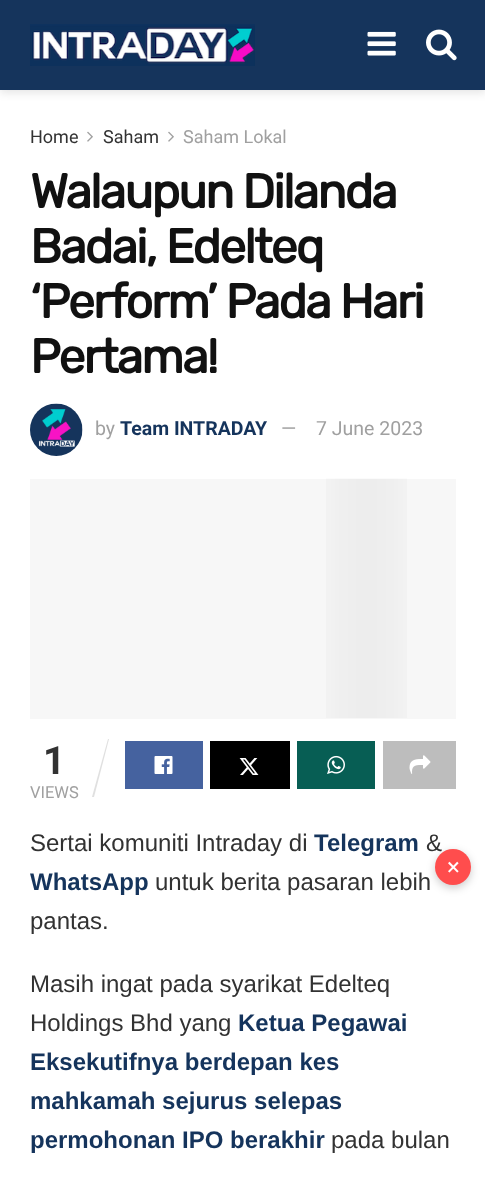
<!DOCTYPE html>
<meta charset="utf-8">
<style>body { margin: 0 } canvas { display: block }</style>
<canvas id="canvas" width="485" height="1179"></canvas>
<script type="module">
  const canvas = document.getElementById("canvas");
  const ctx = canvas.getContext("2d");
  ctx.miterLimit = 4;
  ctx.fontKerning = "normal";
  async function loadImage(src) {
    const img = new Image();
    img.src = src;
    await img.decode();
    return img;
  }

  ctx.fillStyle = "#ffffff";
  ctx.fillRect(0, 0, 485, 1179);
  ctx.fillStyle = "rgba(0, 0, 0, 0.1)";
  ctx.filter = "blur(4.5px)";
  ctx.beginPath();
  ctx.rect(0, 3, 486, 90);
  ctx.fill();
  ctx.filter = "none";
  ctx.fillStyle = "#15345c";
  ctx.fillRect(0, 0, 485, 90);
  ctx.drawImage(await loadImage("img1.png"), 30, 24, 225, 42);
  ctx.drawImage(await loadImage("img2.png"), 367, 31, 29, 25);
  ctx.drawImage(await loadImage("img3.png"), 426, 29, 31, 32);
  ctx.font = "18px Roboto";
  ctx.fillStyle = "#323232";
  ctx.fillText("Home", 30, 143);
  ctx.drawImage(await loadImage("img4.png"), 87, 131, 6, 11);
  ctx.fillText("Saham", 103, 143);
  ctx.drawImage(await loadImage("img4.png"), 168, 131, 6, 11);
  ctx.fillStyle = "#a0a0a0";
  ctx.fillText("Saham Lokal", 183, 143);
  ctx.letterSpacing = "-1.9px";
  ctx.font = "bold 48px Rubik";
  ctx.fillStyle = "#111111";
  ctx.fillText("Walaupun Dilanda", 30, 208);
  ctx.fillText("Badai, Edelteq", 30, 263);
  ctx.fillText("‘Perform’ Pada Hari", 30, 318);
  ctx.fillText("Pertama!", 30, 373);
  ctx.drawImage(await loadImage("img5.png"), 30, 403, 53, 53);
  ctx.letterSpacing = "0px";
  ctx.font = "19.5px Roboto";
  ctx.fillStyle = "#a0a0a0";
  ctx.fillText("by", 95, 435);
  ctx.font = "bold 19.5px Roboto";
  ctx.fillStyle = "#15345c";
  ctx.fillText("Team INTRADAY", 120, 435);
  ctx.font = "19.5px Roboto";
  ctx.fillStyle = "#a0a0a0";
  ctx.fillText("—", 281, 435);
  ctx.fillText("7 June 2023", 316, 435);
  ctx.fillStyle = "#f7f7f7";
  ctx.fillRect(30, 479, 426, 240);
  ctx.drawImage(await loadImage("img6.png"), 326, 478, 81, 240);
  ctx.font = "bold 39px Roboto";
  ctx.fillStyle = "#323232";
  ctx.fillText("1", 43, 774);
  ctx.fillStyle = "#e0e0e0";
  ctx.beginPath();
  ctx.moveTo(108, 739);
  ctx.lineTo(109, 739);
  ctx.lineTo(94, 797);
  ctx.lineTo(92, 797);
  ctx.closePath();
  ctx.fill();
  ctx.font = "16.5px Roboto";
  ctx.fillStyle = "#a0a0a0";
  ctx.fillText("VIEWS", 30, 798);
  ctx.fillStyle = "#45629f";
  ctx.fillRect(125, 741, 78, 48);
  ctx.drawImage(await loadImage("img7.png"), 154, 756, 19, 18);
  ctx.fillStyle = "#000000";
  ctx.fillRect(210, 741, 80, 48);
  ctx.drawImage(await loadImage("img8.png"), 239, 758, 20, 17);
  ctx.fillStyle = "#075e54";
  ctx.fillRect(297, 741, 78, 48);
  ctx.drawImage(await loadImage("img9.png"), 327, 755, 18, 19);
  ctx.fillStyle = "#bdbdbd";
  ctx.fillRect(383, 741, 73, 48);
  ctx.drawImage(await loadImage("img10.png"), 409, 755, 22, 19);
  ctx.font = "24px Liberation Sans";
  ctx.fillStyle = "#323232";
  ctx.fillText("Sertai komuniti Intraday di", 30, 851);
  ctx.font = "bold 24px Liberation Sans";
  ctx.fillStyle = "#15345c";
  ctx.fillText("Telegram", 314, 851);
  ctx.font = "24px Liberation Sans";
  ctx.fillStyle = "#323232";
  ctx.fillText("&", 426, 851);
  ctx.font = "bold 24px Liberation Sans";
  ctx.fillStyle = "#15345c";
  ctx.fillText("WhatsApp", 30, 890);
  ctx.font = "24px Liberation Sans";
  ctx.fillStyle = "#323232";
  ctx.fillText("untuk berita pasaran lebih", 155, 890);
  ctx.fillText("pantas.", 30, 929);
  ctx.fillText("Masih ingat pada syarikat Edelteq", 30, 992);
  ctx.fillText("Holdings Bhd yang", 30, 1031);
  ctx.font = "bold 24px Liberation Sans";
  ctx.fillStyle = "#15345c";
  ctx.fillText("Ketua Pegawai", 238, 1031);
  ctx.fillText("Eksekutifnya berdepan kes", 30, 1070);
  ctx.fillText("mahkamah sejurus selepas", 30, 1109);
  ctx.fillText("permohonan IPO berakhir", 30, 1148);
  ctx.font = "24px Liberation Sans";
  ctx.fillStyle = "#323232";
  ctx.fillText("pada bulan", 331, 1148);
  ctx.fillStyle = "rgba(0, 0, 0, 0.2)";
  ctx.filter = "blur(4px)";
  ctx.beginPath();
  ctx.roundRect(435, 852, 36, 36, 18);
  ctx.fill();
  ctx.filter = "none";
  ctx.fillStyle = "#ff4d4d";
  ctx.beginPath();
  ctx.arc(453, 867, 18, 0, Math.PI * 2);
  ctx.fill();
  ctx.font = "24px Roboto";
  ctx.fillStyle = "#ffffff";
  ctx.fillText("×", 447, 875);
</script>
